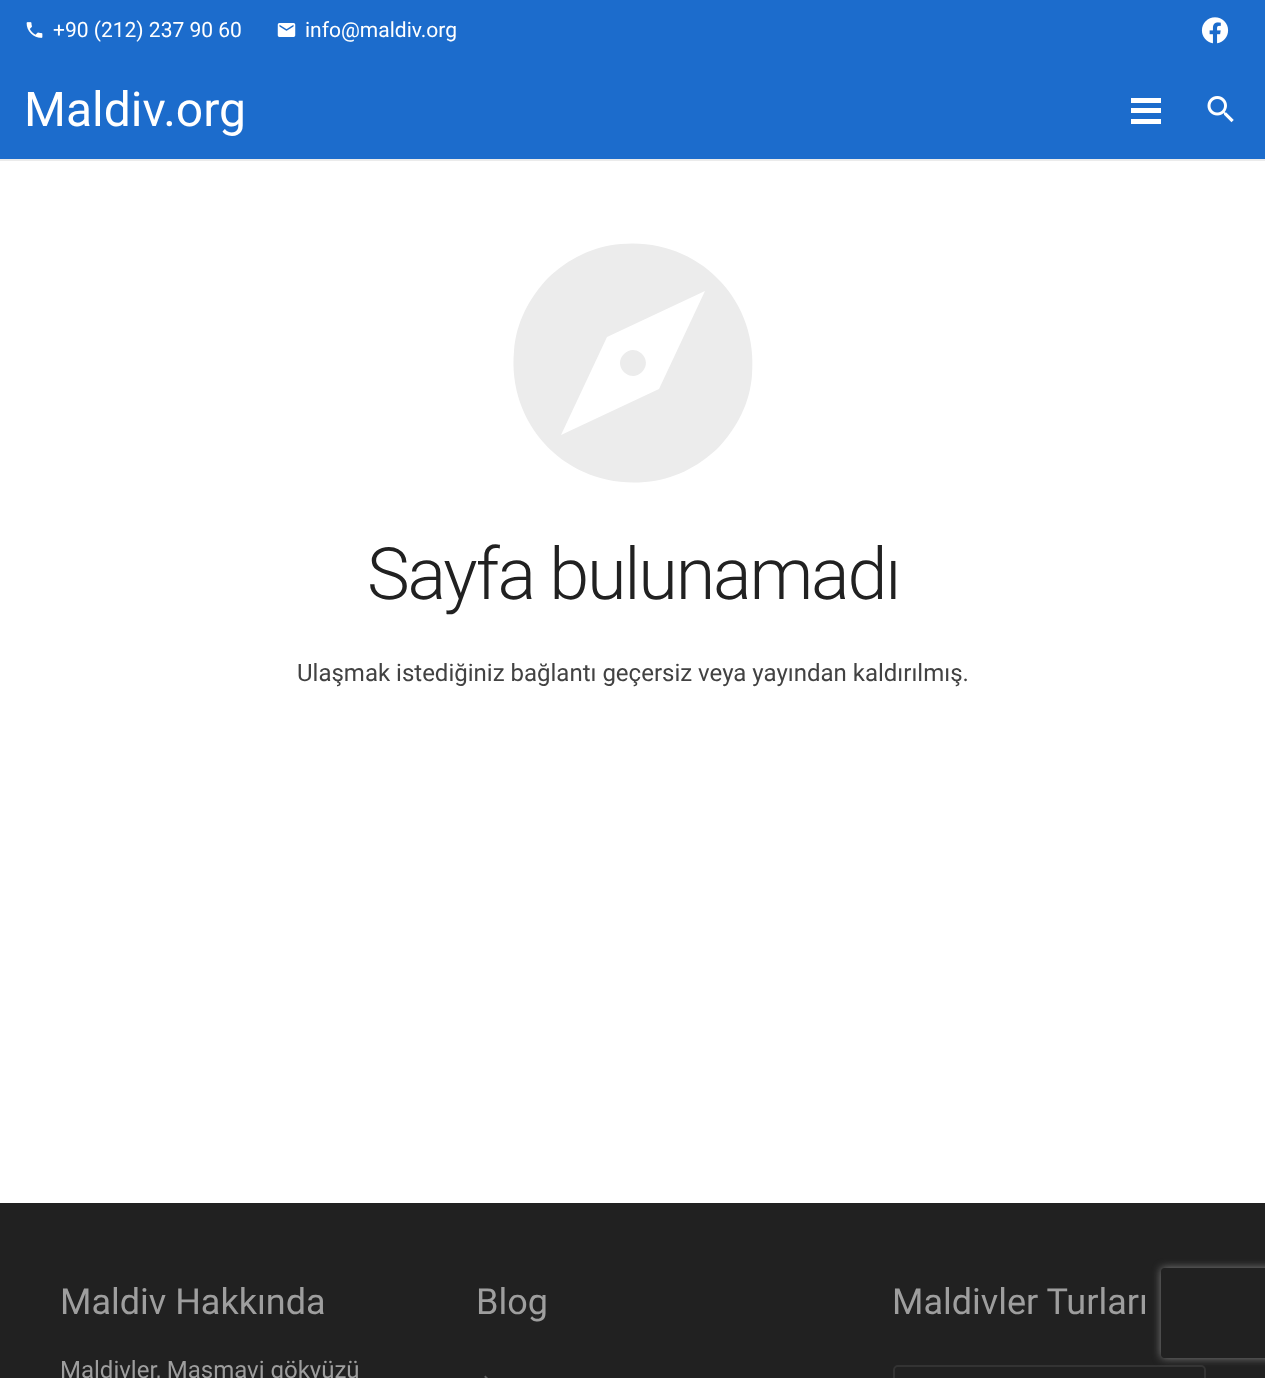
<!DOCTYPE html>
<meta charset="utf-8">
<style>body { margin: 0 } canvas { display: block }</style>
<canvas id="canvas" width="1265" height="1378"></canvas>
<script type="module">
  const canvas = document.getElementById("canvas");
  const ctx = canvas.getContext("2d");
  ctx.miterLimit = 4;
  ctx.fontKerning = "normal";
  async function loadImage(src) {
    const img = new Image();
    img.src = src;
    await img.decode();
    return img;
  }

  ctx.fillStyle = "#ffffff";
  ctx.fillRect(0, 0, 1265, 1378);
  ctx.fillStyle = "#1c6ccc";
  ctx.fillRect(0, 0, 1265, 159);
  ctx.drawImage(await loadImage("img1.png"), 26, 22, 17, 16);
  ctx.font = "21px Roboto";
  ctx.fillStyle = "#ffffff";
  ctx.fillText("+90 (212) 237 90 60", 53, 37);
  ctx.drawImage(await loadImage("img2.png"), 277, 23, 19, 14);
  ctx.fillText("info@maldiv.org", 305, 37);
  ctx.drawImage(await loadImage("img3.png"), 1201, 17, 28, 27);
  ctx.fillStyle = "#ebebeb";
  ctx.fillRect(0, 159, 1265, 2);
  ctx.font = "48px Roboto";
  ctx.fillStyle = "#ffffff";
  ctx.fillText("Maldiv.org", 24, 126);
  ctx.fillRect(1131, 108, 30, 5);
  ctx.fillRect(1131, 98, 30, 5);
  ctx.fillRect(1131, 119, 30, 5);
  ctx.drawImage(await loadImage("img4.png"), 1207, 96, 27, 27);
  ctx.fillStyle = "#ececec";
  ctx.beginPath();
  ctx.moveTo(659, 389);
  ctx.lineTo(705, 291);
  ctx.lineTo(607, 337);
  ctx.lineTo(561, 435);
  ctx.closePath();
  ctx.moveTo(548, 278);
  ctx.bezierCurveTo(568, 259, 593, 246, 621, 244);
  ctx.bezierCurveTo(697, 237, 759, 299, 752, 375);
  ctx.bezierCurveTo(750, 403, 737, 428, 718, 448);
  ctx.bezierCurveTo(698, 467, 673, 480, 645, 482);
  ctx.bezierCurveTo(569, 489, 507, 427, 514, 351);
  ctx.bezierCurveTo(516, 323, 529, 298, 548, 278);
  ctx.closePath();
  ctx.moveTo(624, 354);
  ctx.bezierCurveTo(636, 342, 654, 360, 642, 372);
  ctx.bezierCurveTo(630, 384, 612, 366, 624, 354);
  ctx.closePath();
  ctx.fill();
  ctx.letterSpacing = "-2.2px";
  ctx.font = "300 72px Roboto";
  ctx.fillStyle = "#212121";
  ctx.fillText("Sayfa bulunamadı", 367, 599);
  ctx.letterSpacing = "0px";
  ctx.font = "24px Roboto";
  ctx.fillStyle = "#424242";
  ctx.fillText("Ulaşmak istediğiniz bağlantı geçersiz veya yayından kaldırılmış.", 297, 681);
  ctx.fillStyle = "#212121";
  ctx.fillRect(0, 1203, 1265, 175);
  ctx.font = "36px Roboto";
  ctx.fillStyle = "#9e9e9e";
  ctx.fillText("Maldiv Hakkında", 60, 1314);
  ctx.font = "24px Roboto";
  ctx.fillText("Maldivler, Masmavi gökyüzü", 60, 1378);
  ctx.font = "36px Roboto";
  ctx.fillText("Blog", 476, 1314);
  ctx.drawImage(await loadImage("img5.png"), 484, 1375, 4, 3);
  ctx.fillText("Maldivler Turları", 892, 1314);
  ctx.beginPath();
  ctx.roundRect(894, 1366, 311, 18, 4);
  ctx.strokeStyle = "#333333";
  ctx.lineWidth = 2;
  ctx.stroke();
  ctx.save();
  ctx.beginPath();
  ctx.moveTo(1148, 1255);
  ctx.lineTo(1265, 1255);
  ctx.lineTo(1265, 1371);
  ctx.lineTo(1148, 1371);
  ctx.closePath();
  ctx.moveTo(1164, 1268);
  ctx.lineTo(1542, 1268);
  ctx.bezierCurveTo(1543.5, 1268, 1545, 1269.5, 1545, 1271);
  ctx.lineTo(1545, 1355);
  ctx.bezierCurveTo(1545, 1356.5, 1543.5, 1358, 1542, 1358);
  ctx.lineTo(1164, 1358);
  ctx.bezierCurveTo(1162.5, 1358, 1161, 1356.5, 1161, 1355);
  ctx.lineTo(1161, 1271);
  ctx.bezierCurveTo(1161, 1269.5, 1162.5, 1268, 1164, 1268);
  ctx.closePath();
  ctx.clip("evenodd");
  ctx.fillStyle = "#808080";
  ctx.filter = "blur(4px)";
  ctx.beginPath();
  ctx.roundRect(1161, 1268, 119, 90, 3);
  ctx.fill();
  ctx.filter = "none";
  ctx.restore();
</script>
